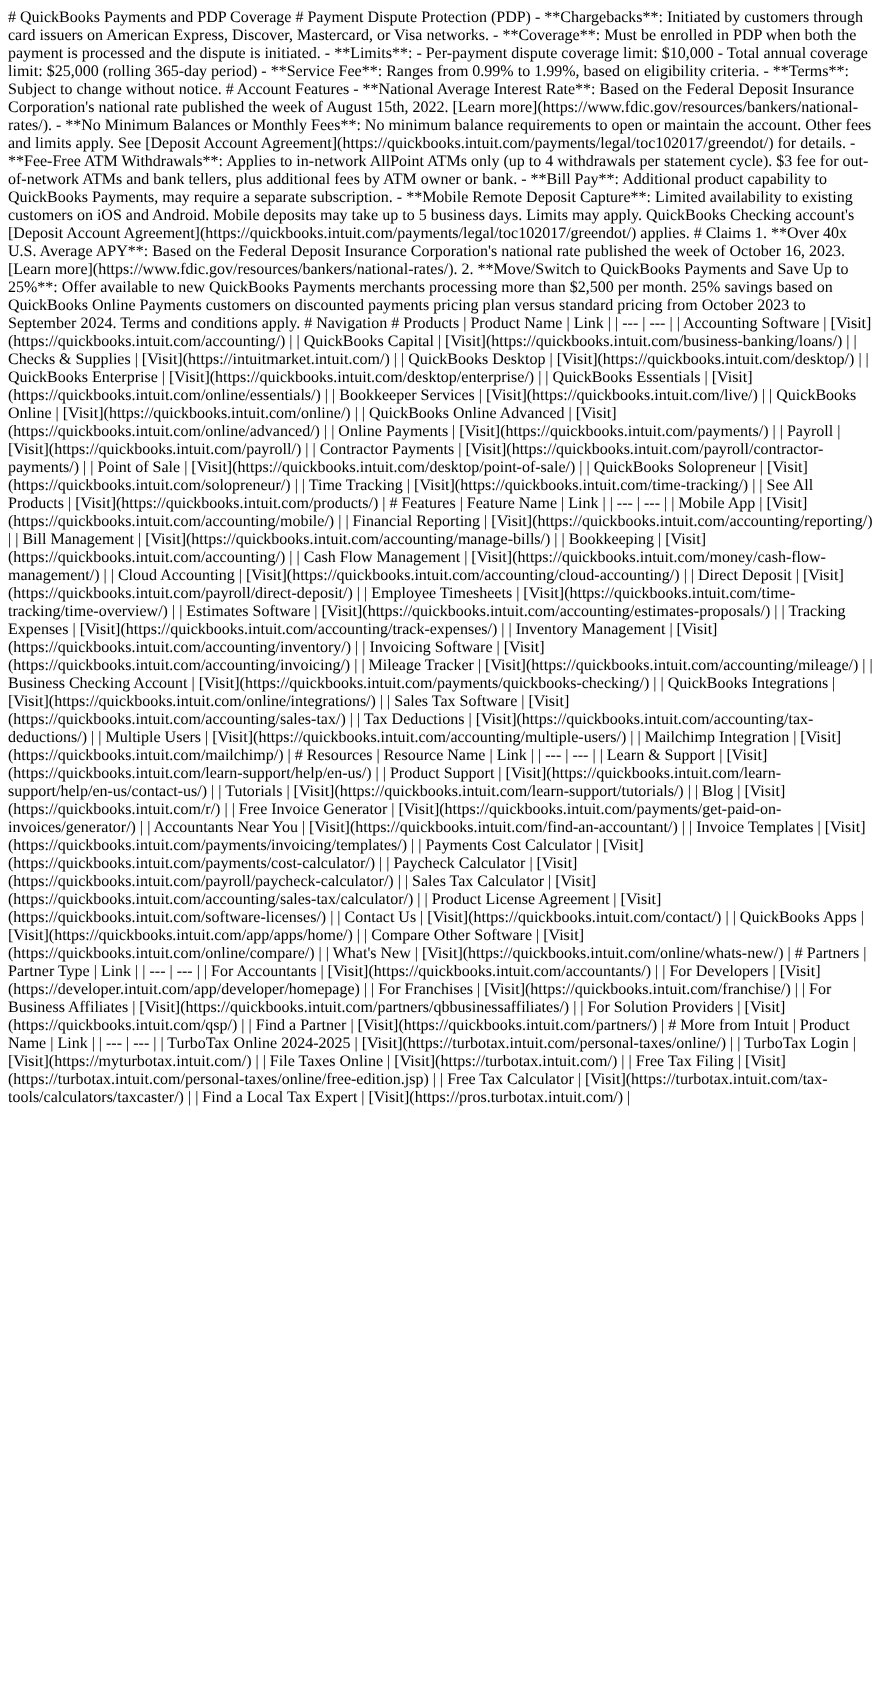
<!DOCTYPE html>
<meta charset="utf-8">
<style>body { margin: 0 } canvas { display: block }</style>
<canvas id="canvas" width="881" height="1705"></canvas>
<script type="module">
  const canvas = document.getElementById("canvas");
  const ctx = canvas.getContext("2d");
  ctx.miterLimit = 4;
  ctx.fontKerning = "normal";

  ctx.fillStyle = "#ffffff";
  ctx.fillRect(0, 0, 881, 1705);
  ctx.font = "16px Liberation Serif";
  ctx.fillStyle = "#000000";
  ctx.fillText("# QuickBooks Payments and PDP Coverage # Payment Dispute Protection (PDP) - **Chargebacks**: Initiated by customers through", 8, 22);
  ctx.fillText("card issuers on American Express, Discover, Mastercard, or Visa networks. - **Coverage**: Must be enrolled in PDP when both the", 8, 40);
  ctx.fillText("payment is processed and the dispute is initiated. - **Limits**: - Per-payment dispute coverage limit: $10,000 - Total annual coverage", 8, 58);
  ctx.fillText("limit: $25,000 (rolling 365-day period) - **Service Fee**: Ranges from 0.99% to 1.99%, based on eligibility criteria. - **Terms**:", 8, 76);
  ctx.fillText("Subject to change without notice. # Account Features - **National Average Interest Rate**: Based on the Federal Deposit Insurance", 8, 94);
  ctx.fillText("Corporation's national rate published the week of August 15th, 2022. [Learn more](https://www.fdic.gov/resources/bankers/national-", 8, 112);
  ctx.fillText("rates/). - **No Minimum Balances or Monthly Fees**: No minimum balance requirements to open or maintain the account. Other fees", 8, 130);
  ctx.fillText("and limits apply. See [Deposit Account Agreement](https://quickbooks.intuit.com/payments/legal/toc102017/greendot/) for details. -", 8, 148);
  ctx.fillText("**Fee-Free ATM Withdrawals**: Applies to in-network AllPoint ATMs only (up to 4 withdrawals per statement cycle). $3 fee for out-", 8, 166);
  ctx.fillText("of-network ATMs and bank tellers, plus additional fees by ATM owner or bank. - **Bill Pay**: Additional product capability to", 8, 184);
  ctx.fillText("QuickBooks Payments, may require a separate subscription. - **Mobile Remote Deposit Capture**: Limited availability to existing", 8, 202);
  ctx.fillText("customers on iOS and Android. Mobile deposits may take up to 5 business days. Limits may apply. QuickBooks Checking account's", 8, 220);
  ctx.fillText("[Deposit Account Agreement](https://quickbooks.intuit.com/payments/legal/toc102017/greendot/) applies. # Claims 1. **Over 40x", 8, 238);
  ctx.fillText("U.S. Average APY**: Based on the Federal Deposit Insurance Corporation's national rate published the week of October 16, 2023.", 8, 256);
  ctx.fillText("[Learn more](https://www.fdic.gov/resources/bankers/national-rates/). 2. **Move/Switch to QuickBooks Payments and Save Up to", 8, 274);
  ctx.fillText("25%**: Offer available to new QuickBooks Payments merchants processing more than $2,500 per month. 25% savings based on", 8, 292);
  ctx.fillText("QuickBooks Online Payments customers on discounted payments pricing plan versus standard pricing from October 2023 to", 8, 310);
  ctx.fillText("September 2024. Terms and conditions apply. # Navigation # Products | Product Name | Link | | --- | --- | | Accounting Software | [Visit]", 8, 328);
  ctx.fillText("(https://quickbooks.intuit.com/accounting/) | | QuickBooks Capital | [Visit](https://quickbooks.intuit.com/business-banking/loans/) | |", 8, 346);
  ctx.fillText("Checks & Supplies | [Visit](https://intuitmarket.intuit.com/) | | QuickBooks Desktop | [Visit](https://quickbooks.intuit.com/desktop/) | |", 8, 364);
  ctx.fillText("QuickBooks Enterprise | [Visit](https://quickbooks.intuit.com/desktop/enterprise/) | | QuickBooks Essentials | [Visit]", 8, 382);
  ctx.fillText("(https://quickbooks.intuit.com/online/essentials/) | | Bookkeeper Services | [Visit](https://quickbooks.intuit.com/live/) | | QuickBooks", 8, 400);
  ctx.fillText("Online | [Visit](https://quickbooks.intuit.com/online/) | | QuickBooks Online Advanced | [Visit]", 8, 418);
  ctx.fillText("(https://quickbooks.intuit.com/online/advanced/) | | Online Payments | [Visit](https://quickbooks.intuit.com/payments/) | | Payroll |", 8, 436);
  ctx.fillText("[Visit](https://quickbooks.intuit.com/payroll/) | | Contractor Payments | [Visit](https://quickbooks.intuit.com/payroll/contractor-", 8, 454);
  ctx.fillText("payments/) | | Point of Sale | [Visit](https://quickbooks.intuit.com/desktop/point-of-sale/) | | QuickBooks Solopreneur | [Visit]", 8, 472);
  ctx.fillText("(https://quickbooks.intuit.com/solopreneur/) | | Time Tracking | [Visit](https://quickbooks.intuit.com/time-tracking/) | | See All", 8, 490);
  ctx.fillText("Products | [Visit](https://quickbooks.intuit.com/products/) | # Features | Feature Name | Link | | --- | --- | | Mobile App | [Visit]", 8, 508);
  ctx.fillText("(https://quickbooks.intuit.com/accounting/mobile/) | | Financial Reporting | [Visit](https://quickbooks.intuit.com/accounting/reporting/)", 8, 526);
  ctx.fillText("| | Bill Management | [Visit](https://quickbooks.intuit.com/accounting/manage-bills/) | | Bookkeeping | [Visit]", 8, 544);
  ctx.fillText("(https://quickbooks.intuit.com/accounting/) | | Cash Flow Management | [Visit](https://quickbooks.intuit.com/money/cash-flow-", 8, 562);
  ctx.fillText("management/) | | Cloud Accounting | [Visit](https://quickbooks.intuit.com/accounting/cloud-accounting/) | | Direct Deposit | [Visit]", 8, 580);
  ctx.fillText("(https://quickbooks.intuit.com/payroll/direct-deposit/) | | Employee Timesheets | [Visit](https://quickbooks.intuit.com/time-", 8, 598);
  ctx.fillText("tracking/time-overview/) | | Estimates Software | [Visit](https://quickbooks.intuit.com/accounting/estimates-proposals/) | | Tracking", 8, 616);
  ctx.fillText("Expenses | [Visit](https://quickbooks.intuit.com/accounting/track-expenses/) | | Inventory Management | [Visit]", 8, 634);
  ctx.fillText("(https://quickbooks.intuit.com/accounting/inventory/) | | Invoicing Software | [Visit]", 8, 652);
  ctx.fillText("(https://quickbooks.intuit.com/accounting/invoicing/) | | Mileage Tracker | [Visit](https://quickbooks.intuit.com/accounting/mileage/) | |", 8, 670);
  ctx.fillText("Business Checking Account | [Visit](https://quickbooks.intuit.com/payments/quickbooks-checking/) | | QuickBooks Integrations |", 8, 688);
  ctx.fillText("[Visit](https://quickbooks.intuit.com/online/integrations/) | | Sales Tax Software | [Visit]", 8, 706);
  ctx.fillText("(https://quickbooks.intuit.com/accounting/sales-tax/) | | Tax Deductions | [Visit](https://quickbooks.intuit.com/accounting/tax-", 8, 724);
  ctx.fillText("deductions/) | | Multiple Users | [Visit](https://quickbooks.intuit.com/accounting/multiple-users/) | | Mailchimp Integration | [Visit]", 8, 742);
  ctx.fillText("(https://quickbooks.intuit.com/mailchimp/) | # Resources | Resource Name | Link | | --- | --- | | Learn & Support | [Visit]", 8, 760);
  ctx.fillText("(https://quickbooks.intuit.com/learn-support/help/en-us/) | | Product Support | [Visit](https://quickbooks.intuit.com/learn-", 8, 778);
  ctx.fillText("support/help/en-us/contact-us/) | | Tutorials | [Visit](https://quickbooks.intuit.com/learn-support/tutorials/) | | Blog | [Visit]", 8, 796);
  ctx.fillText("(https://quickbooks.intuit.com/r/) | | Free Invoice Generator | [Visit](https://quickbooks.intuit.com/payments/get-paid-on-", 8, 814);
  ctx.fillText("invoices/generator/) | | Accountants Near You | [Visit](https://quickbooks.intuit.com/find-an-accountant/) | | Invoice Templates | [Visit]", 8, 832);
  ctx.fillText("(https://quickbooks.intuit.com/payments/invoicing/templates/) | | Payments Cost Calculator | [Visit]", 8, 850);
  ctx.fillText("(https://quickbooks.intuit.com/payments/cost-calculator/) | | Paycheck Calculator | [Visit]", 8, 868);
  ctx.fillText("(https://quickbooks.intuit.com/payroll/paycheck-calculator/) | | Sales Tax Calculator | [Visit]", 8, 886);
  ctx.fillText("(https://quickbooks.intuit.com/accounting/sales-tax/calculator/) | | Product License Agreement | [Visit]", 8, 904);
  ctx.fillText("(https://quickbooks.intuit.com/software-licenses/) | | Contact Us | [Visit](https://quickbooks.intuit.com/contact/) | | QuickBooks Apps |", 8, 922);
  ctx.fillText("[Visit](https://quickbooks.intuit.com/app/apps/home/) | | Compare Other Software | [Visit]", 8, 940);
  ctx.fillText("(https://quickbooks.intuit.com/online/compare/) | | What's New | [Visit](https://quickbooks.intuit.com/online/whats-new/) | # Partners |", 8, 958);
  ctx.fillText("Partner Type | Link | | --- | --- | | For Accountants | [Visit](https://quickbooks.intuit.com/accountants/) | | For Developers | [Visit]", 8, 976);
  ctx.fillText("(https://developer.intuit.com/app/developer/homepage) | | For Franchises | [Visit](https://quickbooks.intuit.com/franchise/) | | For", 8, 994);
  ctx.fillText("Business Affiliates | [Visit](https://quickbooks.intuit.com/partners/qbbusinessaffiliates/) | | For Solution Providers | [Visit]", 8, 1012);
  ctx.fillText("(https://quickbooks.intuit.com/qsp/) | | Find a Partner | [Visit](https://quickbooks.intuit.com/partners/) | # More from Intuit | Product", 8, 1030);
  ctx.fillText("Name | Link | | --- | --- | | TurboTax Online 2024-2025 | [Visit](https://turbotax.intuit.com/personal-taxes/online/) | | TurboTax Login |", 8, 1048);
  ctx.fillText("[Visit](https://myturbotax.intuit.com/) | | File Taxes Online | [Visit](https://turbotax.intuit.com/) | | Free Tax Filing | [Visit]", 8, 1066);
  ctx.fillText("(https://turbotax.intuit.com/personal-taxes/online/free-edition.jsp) | | Free Tax Calculator | [Visit](https://turbotax.intuit.com/tax-", 8, 1084);
  ctx.fillText("tools/calculators/taxcaster/) | | Find a Local Tax Expert | [Visit](https://pros.turbotax.intuit.com/) |", 8, 1102);
</script>
